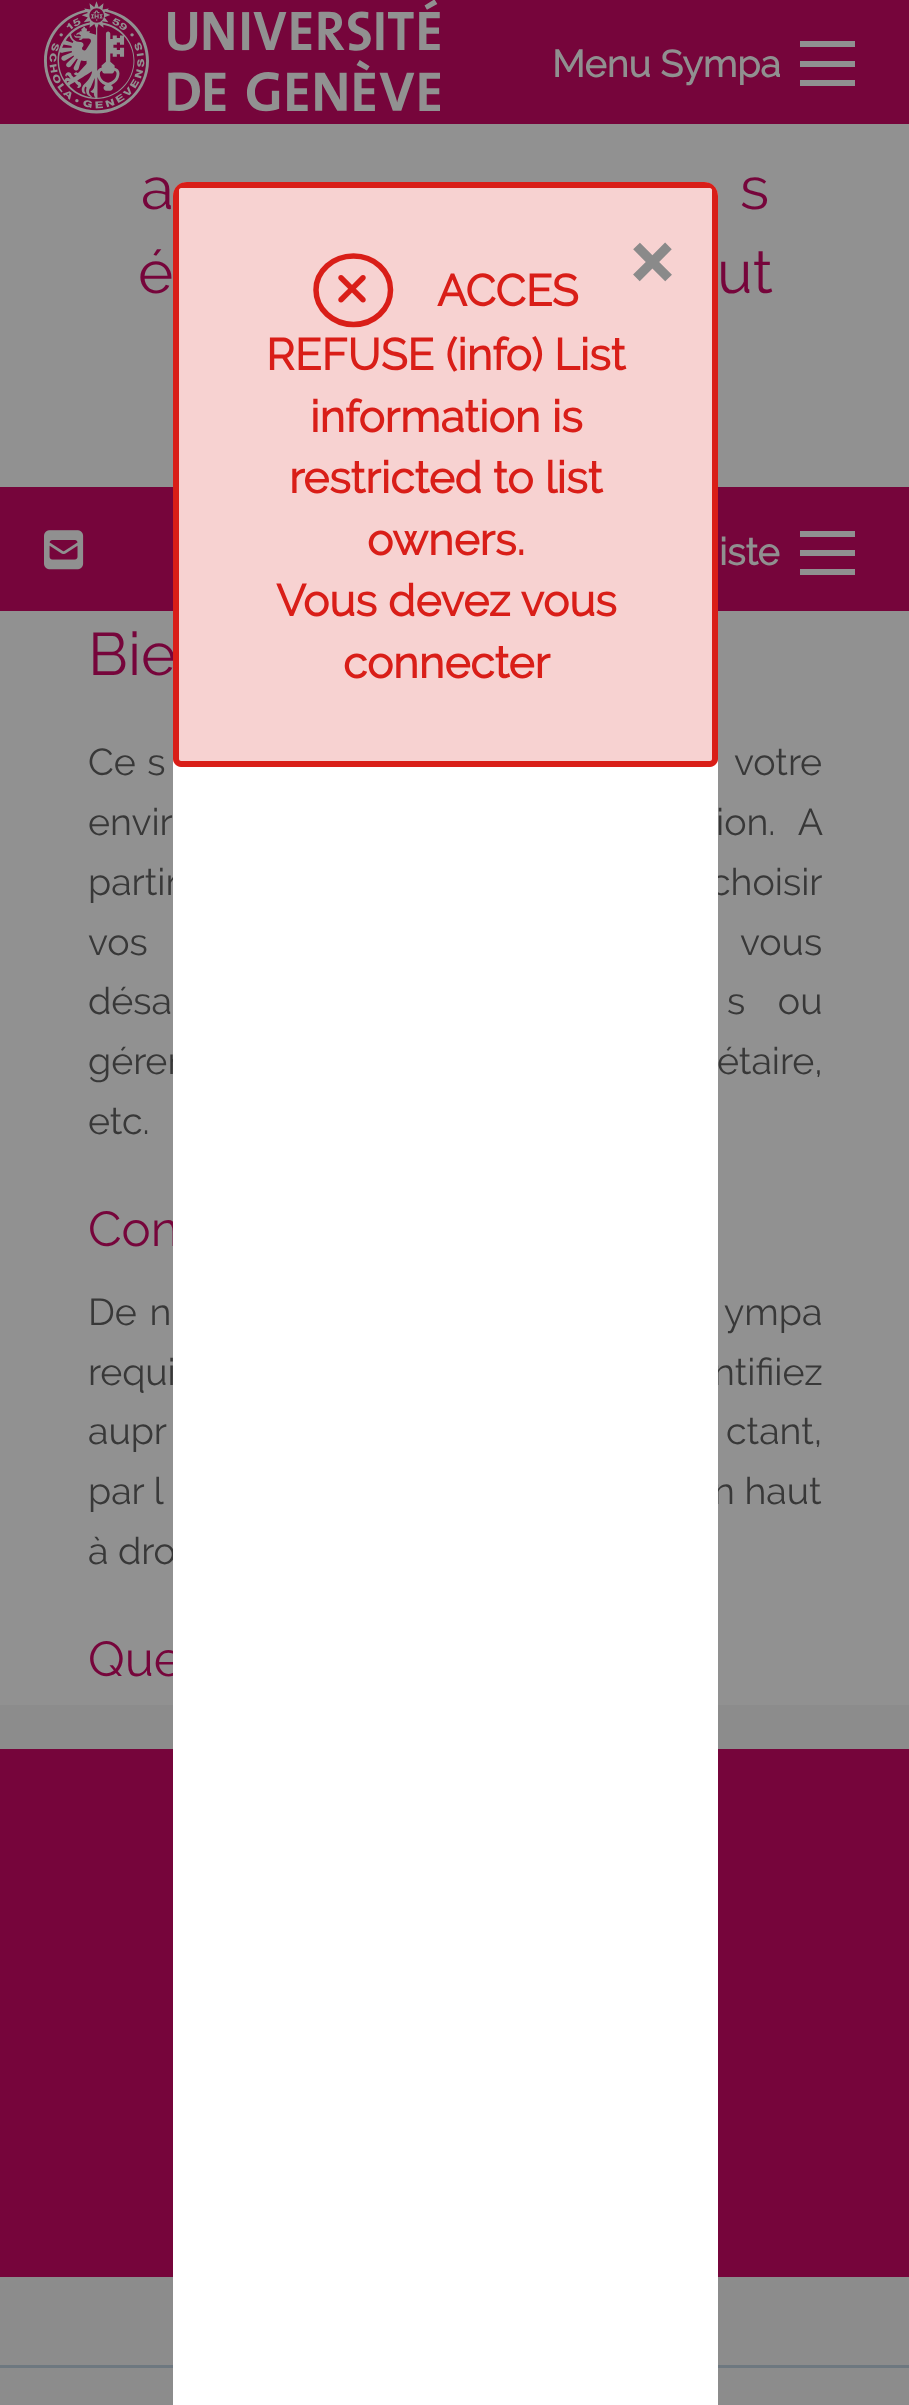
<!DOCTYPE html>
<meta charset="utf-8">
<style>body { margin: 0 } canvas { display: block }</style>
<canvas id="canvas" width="909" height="2405"></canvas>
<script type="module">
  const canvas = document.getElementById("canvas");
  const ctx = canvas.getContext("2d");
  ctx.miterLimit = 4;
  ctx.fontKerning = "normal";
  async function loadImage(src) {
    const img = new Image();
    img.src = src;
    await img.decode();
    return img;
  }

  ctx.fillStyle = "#8c8c8c";
  ctx.fillRect(0, 0, 909, 2405);
  ctx.fillStyle = "#76053b";
  ctx.fillRect(0, 0, 909, 124);
  ctx.drawImage(await loadImage("img1.png"), 44, 0, 396, 114);
  ctx.font = "bold 37.5px Raleway";
  ctx.fillStyle = "#909090";
  ctx.fillText("Menu Sympa", 552, 77);
  ctx.fillRect(800, 80, 55, 6);
  ctx.fillRect(800, 61, 55, 6);
  ctx.fillRect(800, 41, 55, 6);
  ctx.fillStyle = "#919191";
  ctx.fillRect(0, 124, 909, 1581);
  ctx.font = "60px Raleway";
  ctx.fillStyle = "#76053b";
  ctx.fillText("a", 141, 209);
  ctx.fillText("s", 740, 209);
  ctx.fillText("é", 138, 293);
  ctx.fillText("ut", 717, 293);
  ctx.fillRect(0, 487, 909, 124);
  ctx.fillText("Bie", 88, 675);
  ctx.wordSpacing = "8px";
  ctx.font = "37.5px Raleway";
  ctx.fillStyle = "#383838";
  ctx.fillText("partir", 88, 895);
  ctx.fillText("choisir", 710, 895);
  ctx.wordSpacing = "1px";
  ctx.fillText("gérer", 88, 1074);
  ctx.wordSpacing = "0px";
  ctx.font = "49px Raleway";
  ctx.fillStyle = "#76053b";
  ctx.fillText("Con", 88, 1246);
  ctx.wordSpacing = "20px";
  ctx.font = "37.5px Raleway";
  ctx.fillStyle = "#383838";
  ctx.fillText("ntifiiez", 713, 1385);
  ctx.wordSpacing = "0px";
  ctx.fillText("n haut", 713, 1504);
  ctx.fillText("à dro", 88, 1564);
  ctx.font = "49px Raleway";
  ctx.fillStyle = "#76053b";
  ctx.fillText("Que", 88, 1676);
  ctx.fillRect(0, 1749, 909, 528);
  ctx.fillStyle = "#6e7880";
  ctx.fillRect(0, 2365, 909, 3);
  ctx.fillStyle = "#ffffff";
  ctx.beginPath();
  ctx.moveTo(187, 182);
  ctx.lineTo(704, 182);
  ctx.bezierCurveTo(711.5, 182, 718, 188.5, 718, 196);
  ctx.lineTo(718, 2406);
  ctx.lineTo(173, 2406);
  ctx.lineTo(173, 196);
  ctx.bezierCurveTo(173, 188.5, 179.5, 182, 187, 182);
  ctx.closePath();
  ctx.fill();
  ctx.fillStyle = "rgba(217, 30, 24, 0.2)";
  ctx.beginPath();
  ctx.roundRect(173, 182, 545, 585, [14, 14, 8, 8]);
  ctx.fill();
  ctx.fillStyle = "#d91e18";
  ctx.beginPath();
  ctx.moveTo(187, 182);
  ctx.bezierCurveTo(179, 182, 173, 188, 173, 196);
  ctx.lineTo(173, 759);
  ctx.bezierCurveTo(173, 763, 177, 767, 181, 767);
  ctx.lineTo(710, 767);
  ctx.bezierCurveTo(714, 767, 718, 763, 718, 759);
  ctx.lineTo(718, 196);
  ctx.bezierCurveTo(718, 188, 712, 182, 704, 182);
  ctx.closePath();
  ctx.moveTo(181, 188);
  ctx.bezierCurveTo(180, 188, 179, 189, 179, 190);
  ctx.lineTo(179, 759);
  ctx.bezierCurveTo(179, 760, 180, 761, 181, 761);
  ctx.lineTo(710, 761);
  ctx.bezierCurveTo(711, 761, 712, 760, 712, 759);
  ctx.lineTo(712, 190);
  ctx.bezierCurveTo(712, 189, 711, 188, 710, 188);
  ctx.closePath();
  ctx.fill("evenodd");
  ctx.font = "bold 105px Raleway";
  ctx.fillStyle = "#8a8a8a";
  ctx.fillText("×", 627, 292);
  ctx.beginPath();
  ctx.moveTo(353.5, 256);
  ctx.bezierCurveTo(374, 256, 390.5, 271, 390.5, 290);
  ctx.bezierCurveTo(390.5, 309, 374, 324.5, 353.5, 324.5);
  ctx.bezierCurveTo(333, 324.5, 316, 309, 316, 290);
  ctx.bezierCurveTo(316, 271, 333, 256, 353.5, 256);
  ctx.closePath();
  ctx.strokeStyle = "#d91e18";
  ctx.lineWidth = 5.5;
  ctx.stroke();
  ctx.drawImage(await loadImage("img2.png"), 338, 275, 28, 28);
  ctx.font = "bold 44px Raleway";
  ctx.fillStyle = "#d91e18";
  ctx.fillText("ACCES", 437, 306);
  ctx.fillText("REFUSE (info) List", 266, 370);
  ctx.fillText("information is", 310, 432);
  ctx.fillText("restricted to list", 289, 493);
  ctx.fillText("owners.", 367, 555);
  ctx.fillText("Vous devez vous", 276, 616);
  ctx.fillText("connecter", 343, 678);
  ctx.drawImage(await loadImage("img3.png"), 44, 530, 40, 40);
  ctx.font = "bold 37.5px Raleway";
  ctx.fillStyle = "#909090";
  ctx.fillText("iste", 719, 565);
  ctx.fillRect(800, 569, 55, 6);
  ctx.fillRect(800, 550, 55, 6);
  ctx.fillRect(800, 531, 55, 6);
  ctx.wordSpacing = "2px";
  ctx.font = "37.5px Raleway";
  ctx.fillStyle = "#383838";
  ctx.fillText("Ce s", 88, 775);
  ctx.fillText("votre", 734, 775);
  ctx.wordSpacing = "14px";
  ctx.fillText("envir", 88, 835);
  ctx.fillText("ion. A", 716, 835);
  ctx.wordSpacing = "59px";
  ctx.fillText("vos", 88, 955);
  ctx.fillText("vous", 740, 955);
  ctx.wordSpacing = "23px";
  ctx.fillText("désa", 88, 1014);
  ctx.fillText("s ou", 727, 1014);
  ctx.wordSpacing = "1px";
  ctx.fillText("étaire,", 717, 1074);
  ctx.wordSpacing = "0px";
  ctx.fillText("etc.", 88, 1134);
  ctx.wordSpacing = "3px";
  ctx.fillText("De n", 88, 1325);
  ctx.fillText("ympa", 724, 1325);
  ctx.wordSpacing = "20px";
  ctx.fillText("requi", 88, 1385);
  ctx.wordSpacing = "10px";
  ctx.fillText("aupr", 88, 1444);
  ctx.fillText("ctant,", 726, 1444);
  ctx.wordSpacing = "0px";
  ctx.fillText("par l", 88, 1504);
</script>
